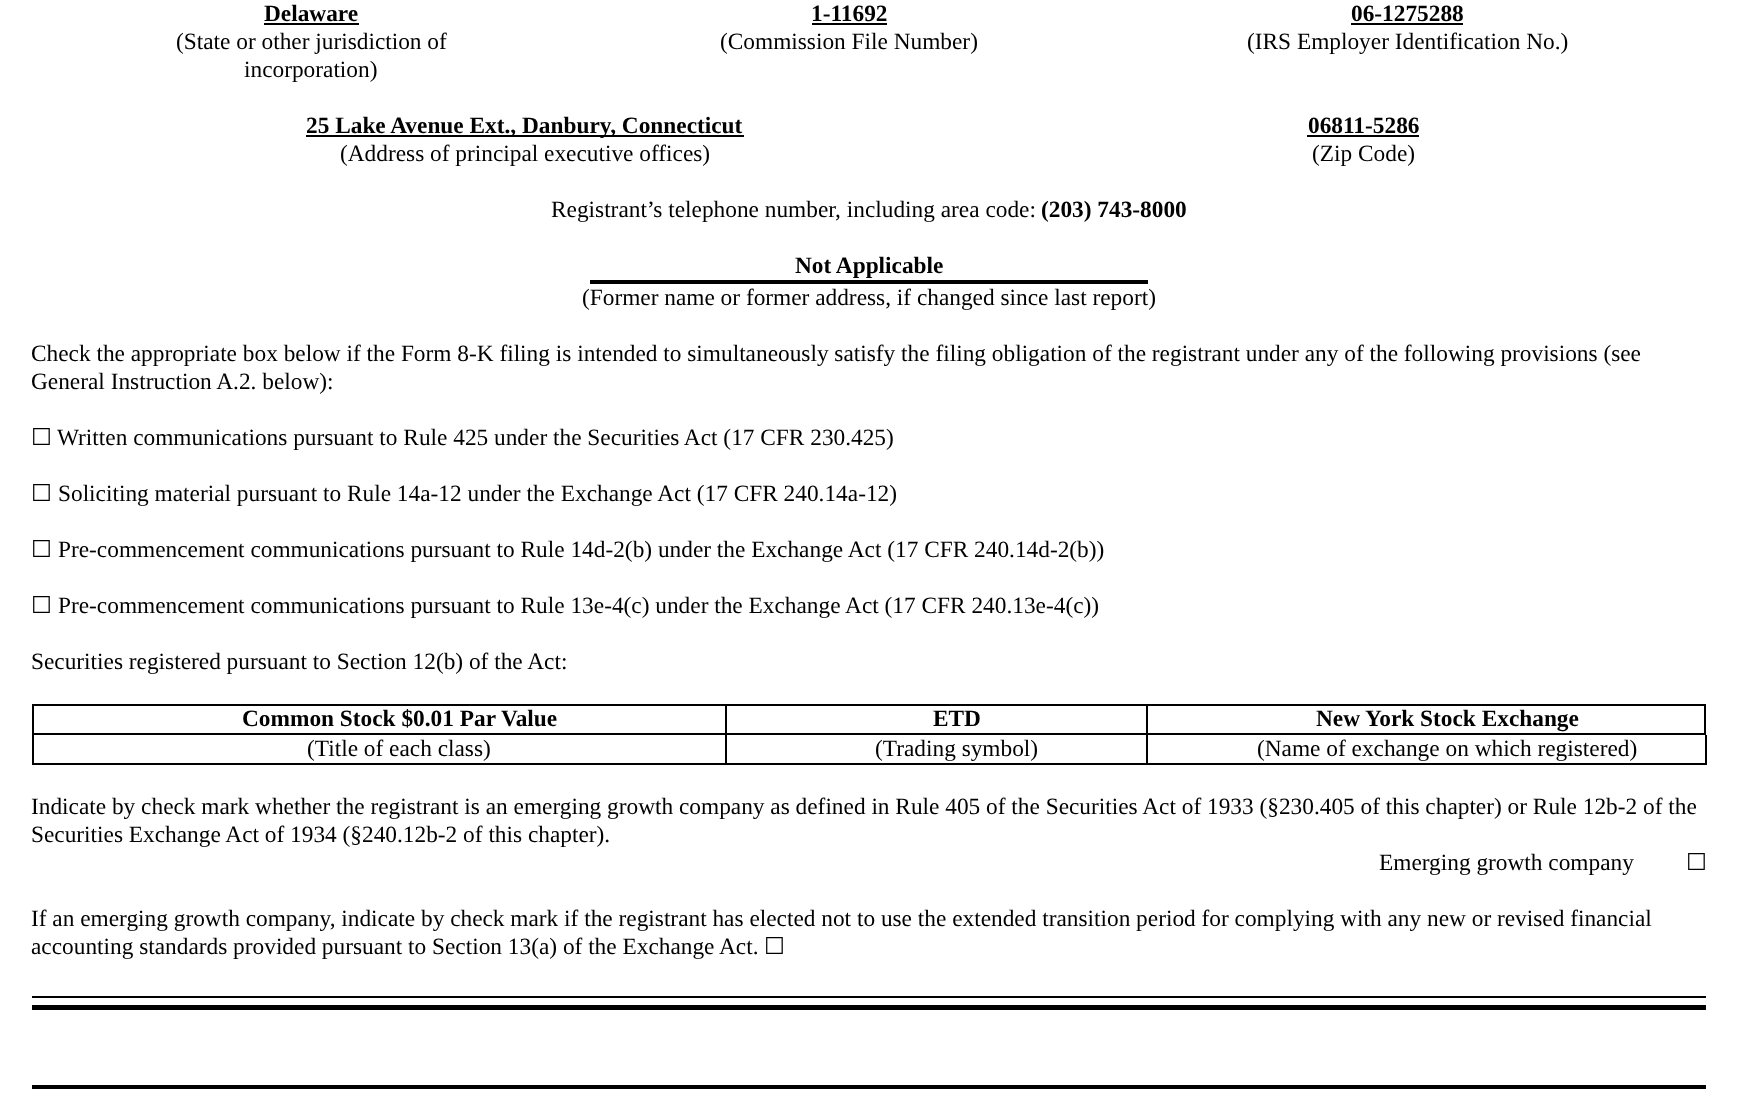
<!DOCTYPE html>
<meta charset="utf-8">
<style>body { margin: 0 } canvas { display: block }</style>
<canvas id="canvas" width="1737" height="1108"></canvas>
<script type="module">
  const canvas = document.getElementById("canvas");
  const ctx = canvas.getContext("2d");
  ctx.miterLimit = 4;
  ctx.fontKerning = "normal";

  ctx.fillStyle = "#ffffff";
  ctx.fillRect(0, 0, 1737, 1108);
  ctx.font = "bold 23.33px Liberation Serif";
  ctx.fillStyle = "#000000";
  ctx.fillText("Delaware", 264, 21);
  ctx.fillRect(264, 23, 95, 2);
  ctx.fillText("1-11692", 811, 21);
  ctx.fillRect(812, 23, 75, 2);
  ctx.fillText("06-1275288", 1351, 21);
  ctx.fillRect(1351, 23, 112, 2);
  ctx.font = "23.33px Liberation Serif";
  ctx.fillText("(State or other jurisdiction of", 176, 49);
  ctx.fillText("incorporation)", 244, 77);
  ctx.fillText("(Commission File Number)", 720, 49);
  ctx.fillText("(IRS Employer Identification No.)", 1247, 49);
  ctx.fillRect(306, 135, 438, 2);
  ctx.font = "bold 23.33px Liberation Serif";
  ctx.fillText("25 Lake Avenue Ext., Danbury, Connecticut", 306, 133);
  ctx.fillText("06811-5286", 1308, 133);
  ctx.fillRect(1307, 135, 112, 2);
  ctx.font = "23.33px Liberation Serif";
  ctx.fillText("(Address of principal executive offices)", 340, 161);
  ctx.fillText("(Zip Code)", 1312, 161);
  ctx.fillText("Registrant’s telephone number, including area code:", 551, 217);
  ctx.font = "bold 23.33px Liberation Serif";
  ctx.fillText("(203) 743-8000", 1041, 217);
  ctx.fillRect(590, 280, 558, 4);
  ctx.fillText("Not Applicable", 795, 273);
  ctx.font = "23.33px Liberation Serif";
  ctx.fillText("(Former name or former address, if changed since last report)", 582, 305);
  ctx.fillText("Check the appropriate box below if the Form 8-K filing is intended to simultaneously satisfy the filing obligation of the registrant under any of the following provisions (see", 31, 361);
  ctx.fillText("General Instruction A.2. below):", 31, 389);
  ctx.font = "23.33px DejaVu Sans";
  ctx.fillText("☐", 31, 445);
  ctx.font = "23.33px Liberation Serif";
  ctx.fillText("Written communications pursuant to Rule 425 under the Securities Act (17 CFR 230.425)", 57, 445);
  ctx.font = "23.33px DejaVu Sans";
  ctx.fillText("☐", 31, 501);
  ctx.font = "23.33px Liberation Serif";
  ctx.fillText("Soliciting material pursuant to Rule 14a-12 under the Exchange Act (17 CFR 240.14a-12)", 58, 501);
  ctx.font = "23.33px DejaVu Sans";
  ctx.fillText("☐", 31, 557);
  ctx.font = "23.33px Liberation Serif";
  ctx.fillText("Pre-commencement communications pursuant to Rule 14d-2(b) under the Exchange Act (17 CFR 240.14d-2(b))", 58, 557);
  ctx.font = "23.33px DejaVu Sans";
  ctx.fillText("☐", 31, 613);
  ctx.font = "23.33px Liberation Serif";
  ctx.fillText("Pre-commencement communications pursuant to Rule 13e-4(c) under the Exchange Act (17 CFR 240.13e-4(c))", 58, 613);
  ctx.fillText("Securities registered pursuant to Section 12(b) of the Act:", 31, 669);
  ctx.fillRect(32, 704, 1114, 2);
  ctx.fillRect(32, 733, 1114, 2);
  ctx.fillRect(32, 704, 2, 31);
  ctx.font = "bold 23.33px Liberation Serif";
  ctx.fillText("Common Stock $0.01 Par Value", 242, 726);
  ctx.fillRect(725, 704, 2, 31);
  ctx.fillText("ETD", 933, 726);
  ctx.strokeStyle = "#000000";
  ctx.lineWidth = 2;
  ctx.strokeRect(1147, 705, 558, 29);
  ctx.fillText("New York Stock Exchange", 1316, 726);
  ctx.fillRect(32, 763, 1114, 2);
  ctx.fillRect(32, 735, 2, 30);
  ctx.font = "23.33px Liberation Serif";
  ctx.fillText("(Title of each class)", 307, 756);
  ctx.fillRect(725, 735, 2, 30);
  ctx.fillText("(Trading symbol)", 875, 756);
  ctx.fillRect(1705, 735, 2, 30);
  ctx.fillRect(1146, 763, 560, 2);
  ctx.fillRect(1146, 735, 2, 30);
  ctx.fillText("(Name of exchange on which registered)", 1257, 756);
  ctx.fillText("Indicate by check mark whether the registrant is an emerging growth company as defined in Rule 405 of the Securities Act of 1933 (§230.405 of this chapter) or Rule 12b-2 of the", 31, 814);
  ctx.fillText("Securities Exchange Act of 1934 (§240.12b-2 of this chapter).", 31, 842);
  ctx.fillText("Emerging growth company", 1379, 870);
  ctx.font = "23.33px DejaVu Sans";
  ctx.fillText("☐", 1686, 870);
  ctx.font = "23.33px Liberation Serif";
  ctx.fillText("If an emerging growth company, indicate by check mark if the registrant has elected not to use the extended transition period for complying with any new or revised financial", 31, 926);
  ctx.fillText("accounting standards provided pursuant to Section 13(a) of the Exchange Act.", 31, 954);
  ctx.font = "23.33px DejaVu Sans";
  ctx.fillText("☐", 764, 954);
  ctx.fillRect(32, 996, 1674, 2);
  ctx.fillRect(32, 1005, 1674, 5);
  ctx.fillRect(32, 1085, 1674, 4);
</script>
